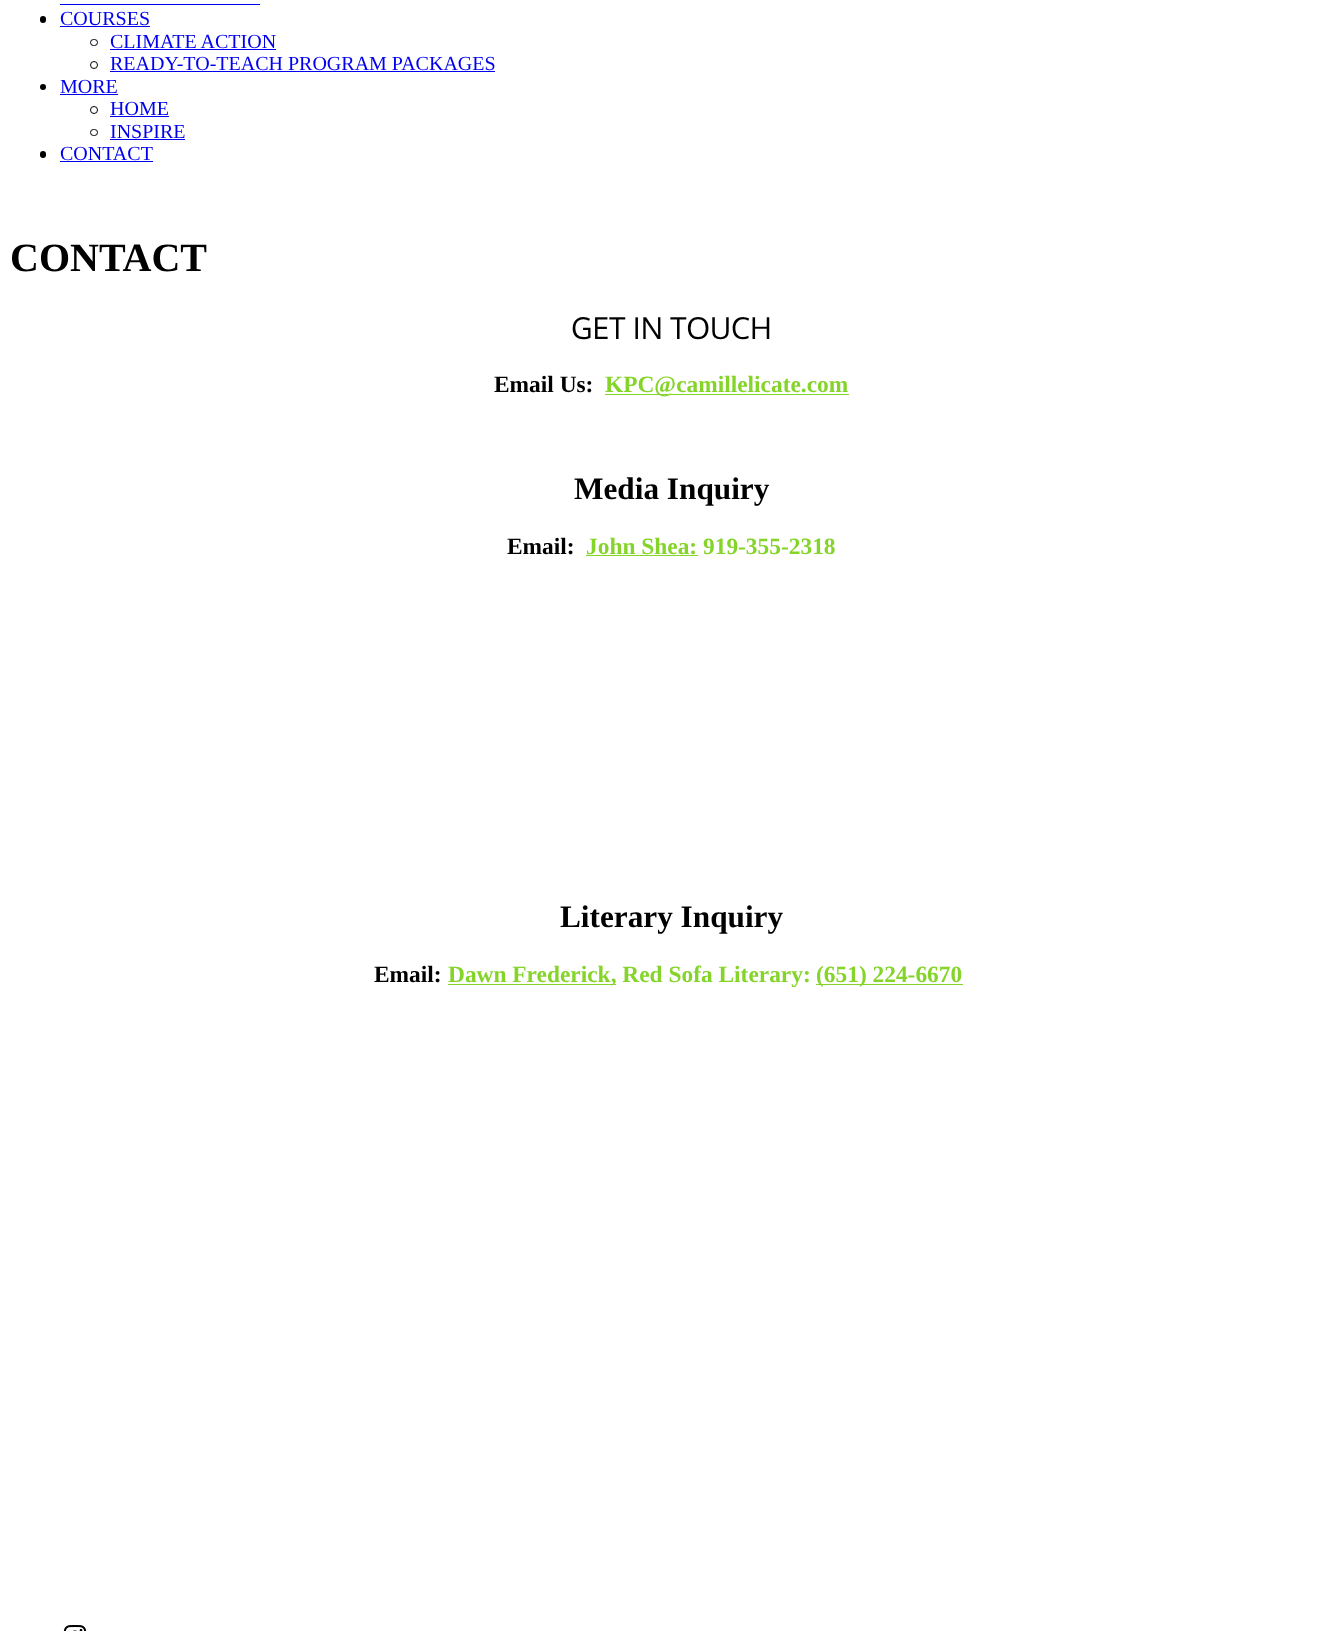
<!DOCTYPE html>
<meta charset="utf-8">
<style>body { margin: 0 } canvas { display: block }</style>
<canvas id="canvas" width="1342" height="1631"></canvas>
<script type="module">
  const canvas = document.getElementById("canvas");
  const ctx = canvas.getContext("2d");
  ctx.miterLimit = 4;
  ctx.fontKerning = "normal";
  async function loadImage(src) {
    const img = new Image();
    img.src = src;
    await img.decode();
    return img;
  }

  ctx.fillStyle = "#ffffff";
  ctx.fillRect(0, 0, 1342, 1631);
  ctx.fillStyle = "#0000ee";
  ctx.fillRect(60, 4, 200, 1);
  ctx.fillStyle = "#000000";
  ctx.beginPath();
  ctx.roundRect(40, 16, 6, 7, 3);
  ctx.fill();
  ctx.font = "20px Liberation Serif";
  ctx.fillStyle = "#0000ee";
  ctx.fillText("COURSES", 60, 25);
  ctx.fillRect(60, 26, 90, 1);
  ctx.beginPath();
  ctx.roundRect(90.5, 39.5, 7, 6, 3);
  ctx.strokeStyle = "#000000";
  ctx.stroke();
  ctx.fillText("CLIMATE ACTION", 110, 48);
  ctx.fillRect(110, 49, 166, 1);
  ctx.beginPath();
  ctx.arc(94, 65, 3.5, 0, Math.PI * 2);
  ctx.stroke();
  ctx.fillText("READY-TO-TEACH PROGRAM PACKAGES", 110, 70);
  ctx.fillRect(110, 71, 385, 1);
  ctx.fillStyle = "#000000";
  ctx.beginPath();
  ctx.arc(43, 87, 3, 0, Math.PI * 2);
  ctx.fill();
  ctx.fillStyle = "#0000ee";
  ctx.fillText("MORE", 60, 93);
  ctx.fillRect(60, 94, 58, 1);
  ctx.beginPath();
  ctx.arc(94, 110, 3.5, 0, Math.PI * 2);
  ctx.stroke();
  ctx.fillText("HOME", 110, 115);
  ctx.fillRect(110, 116, 59, 1);
  ctx.beginPath();
  ctx.roundRect(90.5, 129.5, 7, 6, 3);
  ctx.stroke();
  ctx.fillText("INSPIRE", 110, 138);
  ctx.fillRect(110, 139, 75, 1);
  ctx.fillStyle = "#000000";
  ctx.beginPath();
  ctx.roundRect(40, 151, 6, 7, 3);
  ctx.fill();
  ctx.fillStyle = "#0000ee";
  ctx.fillText("CONTACT", 60, 160);
  ctx.fillRect(60, 161, 93, 1);
  ctx.font = "bold 40px Liberation Serif";
  ctx.fillStyle = "#000000";
  ctx.fillText("CONTACT", 10, 271);
  ctx.font = "30px Oxygen";
  ctx.fillText("GET IN TOUCH", 571, 339);
  ctx.font = "bold 23.4px Liberation Serif";
  ctx.fillText("Email Us:", 494, 392);
  ctx.fillStyle = "#85d42a";
  ctx.fillRect(605, 394, 244, 1);
  ctx.fillText("KPC@camillelicate.com", 605, 392);
  ctx.font = "bold 31.25px Liberation Serif";
  ctx.fillStyle = "#000000";
  ctx.fillText("Media Inquiry", 574, 499);
  ctx.font = "bold 23.4px Liberation Serif";
  ctx.fillText("Email:", 507, 554);
  ctx.fillStyle = "#85d42a";
  ctx.fillText("John Shea: 919-355-2318", 586, 554);
  ctx.fillRect(586, 555, 112, 1);
  ctx.font = "bold 31.25px Liberation Serif";
  ctx.fillStyle = "#000000";
  ctx.fillText("Literary Inquiry", 560, 927);
  ctx.font = "bold 23.4px Liberation Serif";
  ctx.fillText("Email:", 374, 982);
  ctx.fillStyle = "#85d42a";
  ctx.fillRect(448, 984, 168, 1);
  ctx.fillText("Dawn Frederick, Red Sofa Literary:", 448, 982);
  ctx.fillRect(816, 984, 147, 1);
  ctx.fillText("(651) 224-6670", 816, 982);
  ctx.drawImage(await loadImage("img1.png"), 63, 1625, 24, 6);
</script>
